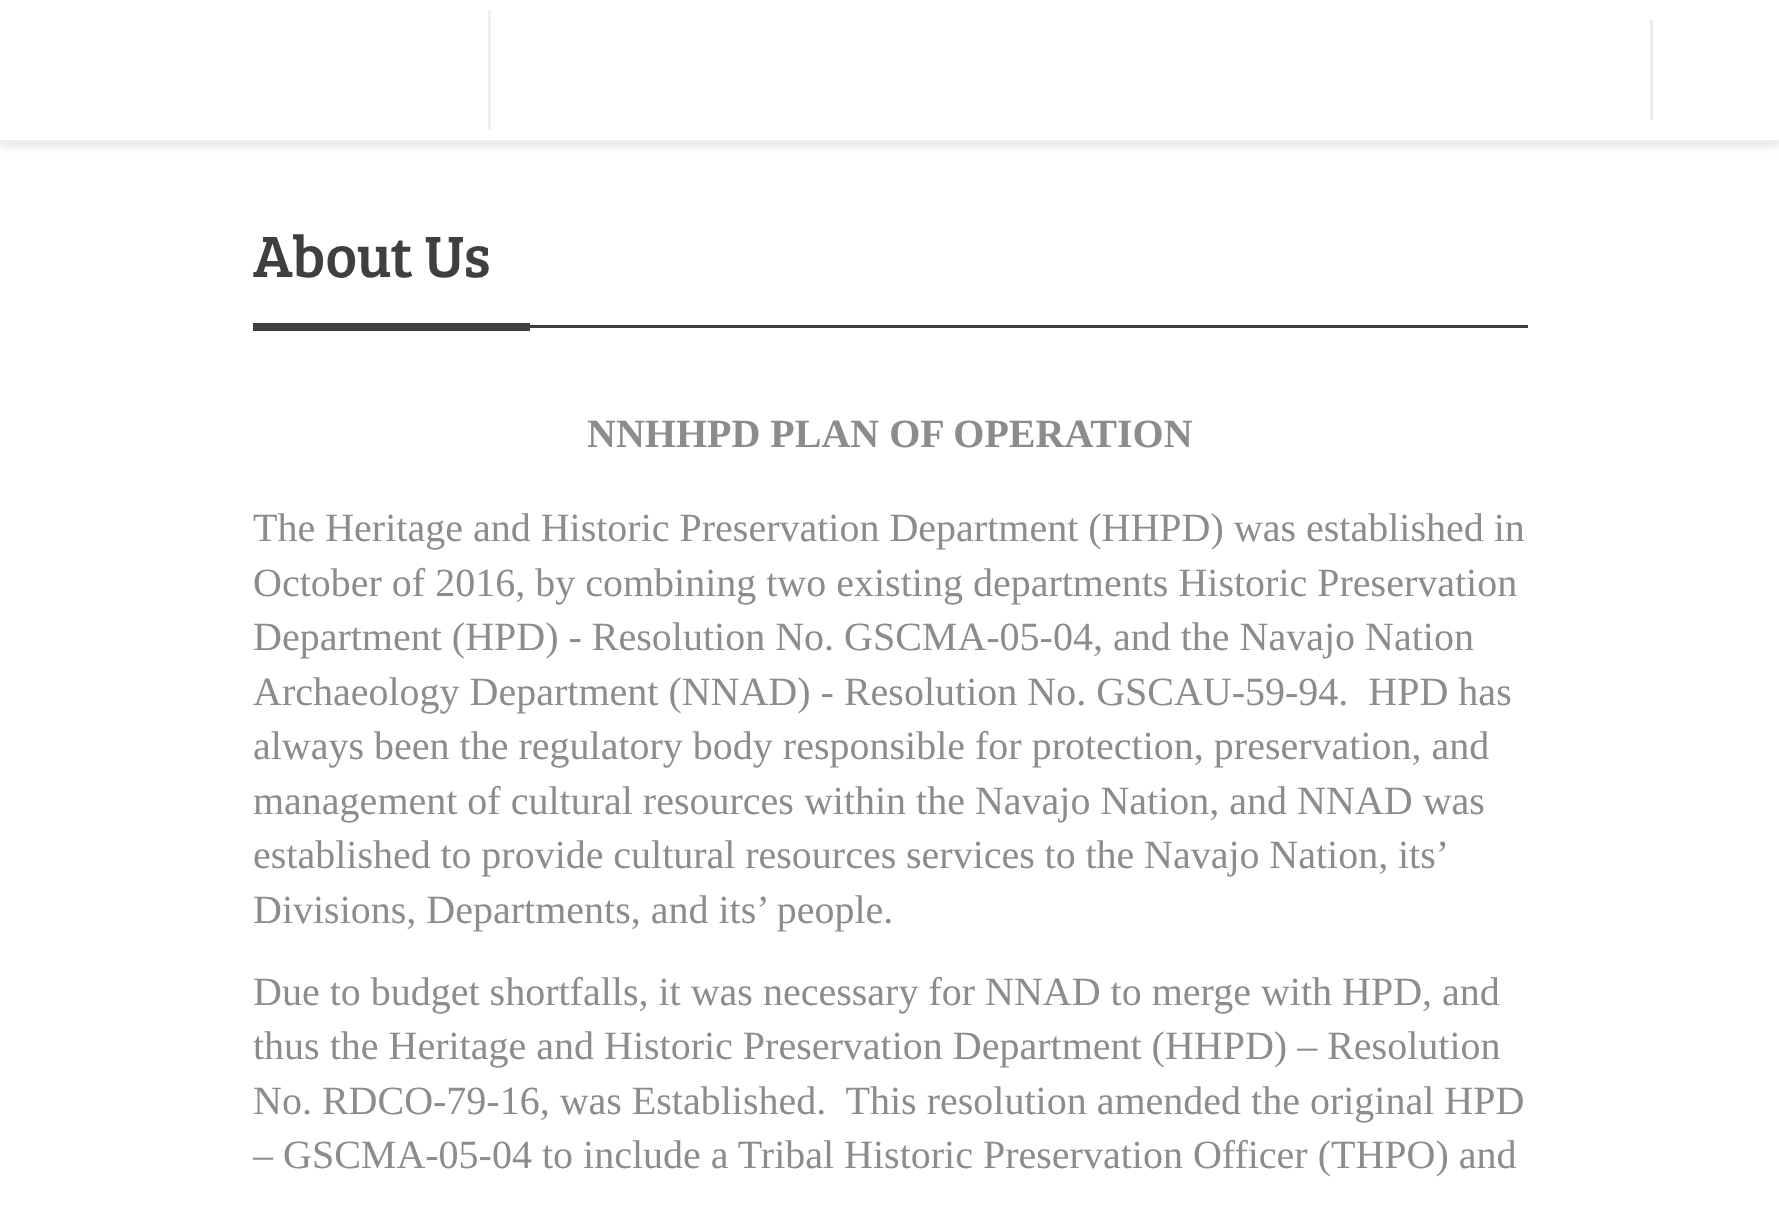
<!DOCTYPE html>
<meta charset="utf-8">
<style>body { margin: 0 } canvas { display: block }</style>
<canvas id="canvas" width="1779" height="1215"></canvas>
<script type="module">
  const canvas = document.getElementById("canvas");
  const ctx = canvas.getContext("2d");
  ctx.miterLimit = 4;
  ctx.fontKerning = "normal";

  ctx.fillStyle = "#ffffff";
  ctx.fillRect(0, 0, 1779, 1215);
  ctx.fillStyle = "rgba(0, 0, 0, 0.2)";
  ctx.filter = "blur(6px)";
  ctx.beginPath();
  ctx.rect(0, 0, 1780, 143);
  ctx.fill();
  ctx.filter = "none";
  ctx.fillStyle = "#ffffff";
  ctx.fillRect(0, 0, 1779, 140);
  ctx.fillStyle = "#eeeeee";
  ctx.fillRect(0, 140, 1779, 3);
  ctx.fillRect(488, 10, 3, 120);
  ctx.fillStyle = "#ededed";
  ctx.fillRect(1650, 20, 3, 100);
  ctx.fillStyle = "#3f3f3f";
  ctx.fillRect(530, 325, 998, 3);
  ctx.font = "60px Bree Serif";
  ctx.fillText("About Us", 253, 277);
  ctx.fillRect(253, 323, 277, 8);
  ctx.font = "bold 40px Liberation Serif";
  ctx.fillStyle = "#8c8c8c";
  ctx.fillText("NNHHPD PLAN OF OPERATION", 587, 447);
  ctx.font = "40px Liberation Serif";
  ctx.fillText("The Heritage and Historic Preservation Department (HHPD) was established in", 253, 541);
  ctx.fillText("October of 2016, by combining two existing departments Historic Preservation", 253, 596);
  ctx.fillText("Department (HPD) - Resolution No. GSCMA-05-04, and the Navajo Nation", 253, 650);
  ctx.fillText("Archaeology Department (NNAD) - Resolution No. GSCAU-59-94.  HPD has", 253, 705);
  ctx.fillText("always been the regulatory body responsible for protection, preservation, and", 253, 759);
  ctx.fillText("management of cultural resources within the Navajo Nation, and NNAD was", 253, 814);
  ctx.wordSpacing = "-0.25px";
  ctx.fillText("established to provide cultural resources services to the Navajo Nation, its’", 253, 868);
  ctx.wordSpacing = "0px";
  ctx.fillText("Divisions, Departments, and its’ people.", 253, 923);
  ctx.fillText("Due to budget shortfalls, it was necessary for NNAD to merge with HPD, and", 253, 1005);
  ctx.fillText("thus the Heritage and Historic Preservation Department (HHPD) – Resolution", 253, 1059);
  ctx.fillText("No. RDCO-79-16, was Established.  This resolution amended the original HPD", 253, 1114);
  ctx.fillText("– GSCMA-05-04 to include a Tribal Historic Preservation Officer (THPO) and", 253, 1168);
</script>
